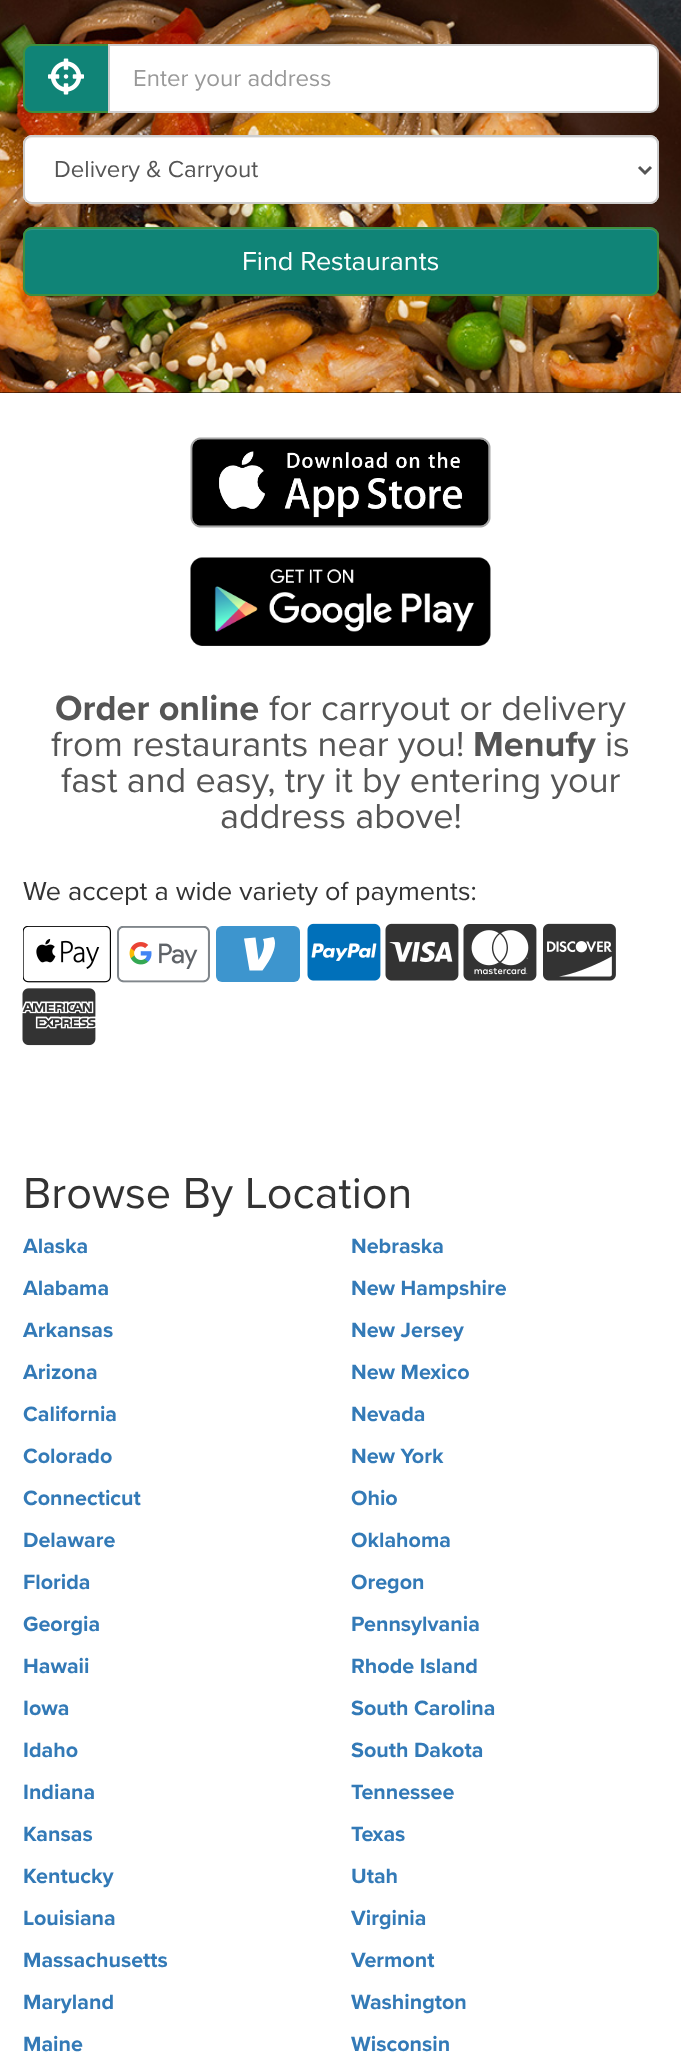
<!DOCTYPE html>
<meta charset="utf-8">
<style>body { margin: 0 } canvas { display: block }</style>
<canvas id="canvas" width="681" height="2071"></canvas>
<script type="module">
  const canvas = document.getElementById("canvas");
  const ctx = canvas.getContext("2d");
  ctx.miterLimit = 4;
  ctx.fontKerning = "normal";
  async function loadImage(src) {
    const img = new Image();
    img.src = src;
    await img.decode();
    return img;
  }

  ctx.fillStyle = "#ffffff";
  ctx.fillRect(0, 0, 681, 2071);
  ctx.fillStyle = "#000000";
  ctx.fillRect(0, 392, 681, 1);
  ctx.drawImage(await loadImage("img1.png"), 0, 0, 681, 393);
  ctx.fillStyle = "rgba(0, 0, 0, 0.07)";
  ctx.filter = "blur(1px)";
  ctx.beginPath();
  ctx.roundRect(23, 45, 87, 69, 9);
  ctx.fill();
  ctx.filter = "none";
  ctx.fillStyle = "#108477";
  ctx.beginPath();
  ctx.roundRect(24, 45, 85, 67, [8, 0, 0, 8]);
  ctx.fill();
  ctx.strokeStyle = "#3e8f3e";
  ctx.lineWidth = 2;
  ctx.stroke();
  ctx.drawImage(await loadImage("img2.png"), 48, 58, 36, 37);
  ctx.fillStyle = "#ffffff";
  ctx.beginPath();
  ctx.roundRect(109, 45, 549, 67, [0, 8, 8, 0]);
  ctx.fill();
  ctx.strokeStyle = "#cccccc";
  ctx.stroke();
  ctx.font = "24px Proxima Nova";
  ctx.fillStyle = "#999999";
  ctx.fillText("Enter your address", 133, 86);
  ctx.fillStyle = "#ffffff";
  ctx.beginPath();
  ctx.roundRect(23, 135, 636, 69, 9);
  ctx.fill();
  ctx.fillStyle = "#ececec";
  ctx.beginPath();
  ctx.moveTo(32, 138);
  ctx.lineTo(650, 138);
  ctx.bezierCurveTo(654, 138, 657, 141, 657, 146);
  ctx.bezierCurveTo(657, 141, 654, 137, 649, 137);
  ctx.lineTo(32, 137);
  ctx.bezierCurveTo(27, 137, 24, 141, 24, 146);
  ctx.bezierCurveTo(24, 141, 27, 138, 32, 138);
  ctx.closePath();
  ctx.fill();
  ctx.beginPath();
  ctx.roundRect(24, 136, 634, 67, 8);
  ctx.stroke();
  ctx.beginPath();
  ctx.moveTo(639, 167);
  ctx.lineTo(645, 173);
  ctx.lineTo(651, 167);
  ctx.strokeStyle = "#555555";
  ctx.lineWidth = 3;
  ctx.stroke();
  ctx.fillStyle = "#555555";
  ctx.fillText("Delivery & Carryout", 54, 177);
  ctx.fillStyle = "rgba(0, 0, 0, 0.07)";
  ctx.filter = "blur(1px)";
  ctx.beginPath();
  ctx.roundRect(23, 228, 636, 69, 9);
  ctx.fill();
  ctx.filter = "none";
  ctx.fillStyle = "#108477";
  ctx.beginPath();
  ctx.roundRect(23, 227, 636, 69, 9);
  ctx.fill();
  ctx.fillStyle = "#34968b";
  ctx.beginPath();
  ctx.moveTo(32, 230);
  ctx.lineTo(650, 230);
  ctx.bezierCurveTo(654, 230, 657, 233, 657, 237);
  ctx.bezierCurveTo(657, 232, 654, 228, 649, 228);
  ctx.lineTo(32, 228);
  ctx.bezierCurveTo(27, 228, 24, 232, 24, 237);
  ctx.bezierCurveTo(24, 233, 27, 230, 32, 230);
  ctx.closePath();
  ctx.fill();
  ctx.beginPath();
  ctx.roundRect(24, 228, 634, 67, 8);
  ctx.strokeStyle = "#3e8f3e";
  ctx.lineWidth = 2;
  ctx.stroke();
  ctx.font = "27px Proxima Nova";
  ctx.fillStyle = "#ffffff";
  ctx.fillText("Find Restaurants", 242, 270);
  ctx.drawImage(await loadImage("img3.png"), 190, 437, 301, 91);
  ctx.drawImage(await loadImage("img4.png"), 190, 557, 301, 89);
  ctx.font = "bold 36px Proxima Nova";
  ctx.fillStyle = "#555555";
  ctx.fillText("Order online", 55, 720);
  ctx.font = "36px Proxima Nova";
  ctx.fillText("for carryout or delivery", 269, 720);
  ctx.fillText("from restaurants near you!", 51, 756);
  ctx.font = "bold 36px Proxima Nova";
  ctx.fillText("Menufy", 473, 756);
  ctx.font = "36px Proxima Nova";
  ctx.fillText("is", 605, 756);
  ctx.fillText("fast and easy, try it by entering your", 61, 792);
  ctx.fillText("address above!", 220, 828);
  ctx.font = "27px Proxima Nova";
  ctx.fillStyle = "#333333";
  ctx.fillText("We accept a wide variety of payments:", 23, 900);
  ctx.drawImage(await loadImage("img5.png"), 23, 926, 88, 57);
  ctx.drawImage(await loadImage("img6.png"), 117, 926, 93, 57);
  ctx.fillStyle = "#3d95ce";
  ctx.beginPath();
  ctx.roundRect(216, 926, 84, 56, 6);
  ctx.fill();
  ctx.drawImage(await loadImage("img7.png"), 307, 923, 74, 58);
  ctx.drawImage(await loadImage("img8.png"), 385, 923, 74, 58);
  ctx.drawImage(await loadImage("img9.png"), 463, 924, 74, 57);
  ctx.drawImage(await loadImage("img10.png"), 543, 923, 73, 58);
  ctx.fillStyle = "#ffffff";
  ctx.beginPath();
  ctx.moveTo(275, 943.5);
  ctx.bezierCurveTo(275, 952, 268, 963, 262.5, 970.5);
  ctx.lineTo(249.5, 970.5);
  ctx.lineTo(244, 938.5);
  ctx.lineTo(255.5, 937.5);
  ctx.lineTo(258.5, 960);
  ctx.bezierCurveTo(262, 954.5, 266, 946, 263, 939);
  ctx.lineTo(273.5, 937);
  ctx.bezierCurveTo(274.5, 939, 275, 941, 275, 943.5);
  ctx.closePath();
  ctx.fill("evenodd");
  ctx.drawImage(await loadImage("img11.png"), 22, 988, 74, 58);
  ctx.font = "45px Proxima Nova";
  ctx.fillStyle = "#333333";
  ctx.fillText("Browse By Location", 23, 1208);
  ctx.font = "bold 21.5px Proxima Nova";
  ctx.fillStyle = "#337ab7";
  ctx.fillText("Alaska", 23, 1253);
  ctx.fillText("Nebraska", 351, 1253);
  ctx.fillText("Alabama", 23, 1295);
  ctx.fillText("New Hampshire", 351, 1295);
  ctx.fillText("Arkansas", 23, 1337);
  ctx.fillText("New Jersey", 351, 1337);
  ctx.fillText("Arizona", 23, 1379);
  ctx.fillText("New Mexico", 351, 1379);
  ctx.fillText("California", 23, 1421);
  ctx.fillText("Nevada", 351, 1421);
  ctx.fillText("Colorado", 23, 1463);
  ctx.fillText("New York", 351, 1463);
  ctx.fillText("Connecticut", 23, 1505);
  ctx.fillText("Ohio", 351, 1505);
  ctx.fillText("Delaware", 23, 1547);
  ctx.fillText("Oklahoma", 351, 1547);
  ctx.fillText("Florida", 23, 1589);
  ctx.fillText("Oregon", 351, 1589);
  ctx.fillText("Georgia", 23, 1631);
  ctx.fillText("Pennsylvania", 351, 1631);
  ctx.fillText("Hawaii", 23, 1673);
  ctx.fillText("Rhode Island", 351, 1673);
  ctx.fillText("Iowa", 23, 1715);
  ctx.fillText("South Carolina", 351, 1715);
  ctx.fillText("Idaho", 23, 1757);
  ctx.fillText("South Dakota", 351, 1757);
  ctx.fillText("Indiana", 23, 1799);
  ctx.fillText("Tennessee", 351, 1799);
  ctx.fillText("Kansas", 23, 1841);
  ctx.fillText("Texas", 351, 1841);
  ctx.fillText("Kentucky", 23, 1883);
  ctx.fillText("Utah", 351, 1883);
  ctx.fillText("Louisiana", 23, 1925);
  ctx.fillText("Virginia", 351, 1925);
  ctx.fillText("Massachusetts", 23, 1967);
  ctx.fillText("Vermont", 351, 1967);
  ctx.fillText("Maryland", 23, 2009);
  ctx.fillText("Washington", 351, 2009);
  ctx.fillText("Maine", 23, 2051);
  ctx.fillText("Wisconsin", 351, 2051);
</script>
